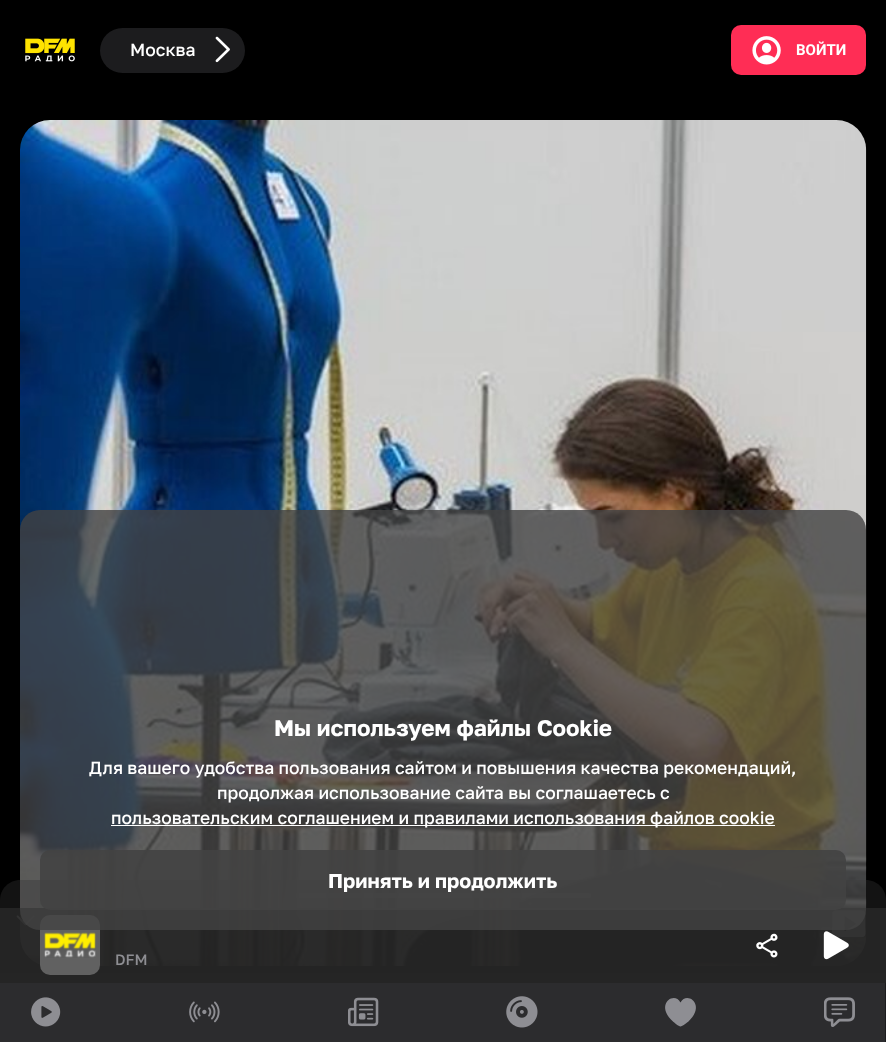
<!DOCTYPE html>
<meta charset="utf-8">
<style>body { margin: 0 } canvas { display: block }</style>
<canvas id="canvas" width="886" height="1042"></canvas>
<script type="module">
  const canvas = document.getElementById("canvas");
  const ctx = canvas.getContext("2d");
  ctx.miterLimit = 4;
  ctx.fontKerning = "normal";
  async function loadImage(src) {
    const img = new Image();
    img.src = src;
    await img.decode();
    return img;
  }

  ctx.fillStyle = "#000000";
  ctx.fillRect(0, 0, 886, 1042);
  ctx.drawImage(await loadImage("img1.png"), 25, 38, 50, 24);
  ctx.fillStyle = "#1c1c1e";
  ctx.beginPath();
  ctx.roundRect(100, 28, 145, 45, 22.5);
  ctx.fill();
  ctx.font = "500 17.5px Golos Text";
  ctx.fillStyle = "#ffffff";
  ctx.fillText("Москва", 130, 56);
  ctx.drawImage(await loadImage("img2.png"), 215, 36, 15, 27);
  ctx.fillStyle = "#ff2d55";
  ctx.beginPath();
  ctx.roundRect(731, 25, 135, 50, 10);
  ctx.fill();
  ctx.drawImage(await loadImage("img3.png"), 752, 36, 29, 29);
  ctx.font = "bold 15px Roboto";
  ctx.fillStyle = "#ffffff";
  ctx.fillText("ВОЙТИ", 796, 55);
  ctx.drawImage(await loadImage("img4.png"), 20, 120, 847, 847);
  ctx.fillStyle = "rgba(37, 37, 37, 0.5)";
  ctx.beginPath();
  ctx.moveTo(20, 880);
  ctx.lineTo(866, 880);
  ctx.bezierCurveTo(877, 880, 886, 889, 886, 900);
  ctx.lineTo(886, 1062);
  ctx.lineTo(0, 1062);
  ctx.lineTo(0, 900);
  ctx.bezierCurveTo(0, 889, 9, 880, 20, 880);
  ctx.closePath();
  ctx.fill();
  ctx.fillStyle = "rgba(142, 142, 147, 0.6)";
  ctx.beginPath();
  ctx.roundRect(296, 893, 295, 5, 2.5);
  ctx.fill();
  ctx.drawImage(await loadImage("img10.png"), 16, 915, 19, 11);
  ctx.drawImage(await loadImage("img11.png"), 832, 910, 34, 28);
  ctx.fillStyle = "#2c2c2e";
  ctx.fillRect(0, 973, 885, 69);
  ctx.fillStyle = "#1c1c1e";
  ctx.fillRect(885, 973, 1, 69);
  ctx.fillStyle = "rgba(37, 37, 37, 0.94)";
  ctx.fillRect(0, 908, 886, 75);
  ctx.fillStyle = "#616161";
  ctx.beginPath();
  ctx.roundRect(40, 915, 60, 60, 10);
  ctx.fill();
  ctx.fillStyle = "rgba(66, 66, 66, 0.8)";
  ctx.beginPath();
  ctx.roundRect(20, 510, 846, 420, 20);
  ctx.fill();
  ctx.font = "bold 22.5px Golos Text";
  ctx.fillStyle = "#ffffff";
  ctx.fillText("Мы используем файлы Cookie", 274, 736);
  ctx.font = "500 17.5px Golos Text";
  ctx.fillText("Для вашего удобства пользования сайтом и повышения качества рекомендаций,", 89, 774);
  ctx.fillText("продолжая использование сайта вы соглашаетесь c", 217, 799);
  ctx.fillRect(111, 825, 664, 1);
  ctx.fillText("пользовательским соглашением и правилами использования файлов cookie", 111, 824);
  ctx.fillStyle = "rgba(66, 66, 66, 0.9)";
  ctx.beginPath();
  ctx.roundRect(40, 850, 806, 60, 10);
  ctx.fill();
  ctx.font = "bold 20px Golos Text";
  ctx.fillStyle = "#ffffff";
  ctx.fillText("Принять и продолжить", 328, 888);
  ctx.drawImage(await loadImage("img5.png"), 31, 997, 30, 30);
  ctx.drawImage(await loadImage("img6.png"), 189, 1001, 31, 22);
  ctx.drawImage(await loadImage("img7.png"), 348, 997, 31, 30);
  ctx.drawImage(await loadImage("img8.png"), 506, 996, 32, 32);
  ctx.fillStyle = "#8e8e93";
  ctx.beginPath();
  ctx.moveTo(680.5, 1026.5);
  ctx.bezierCurveTo(682.5, 1026.5, 686.5, 1022.5, 688, 1022);
  ctx.bezierCurveTo(707, 1005, 687, 990.5, 680.5, 1002.5);
  ctx.bezierCurveTo(674, 990.5, 654, 1005, 673.5, 1022);
  ctx.bezierCurveTo(674.5, 1022.5, 678.5, 1026.5, 680.5, 1026.5);
  ctx.fill();
  ctx.drawImage(await loadImage("img9.png"), 824, 997, 31, 30);
  ctx.drawImage(await loadImage("img12.png"), 44, 932, 52, 26);
  ctx.drawImage(await loadImage("img13.png"), 756, 933, 22, 25);
  ctx.font = "500 15px Golos Text";
  ctx.fillText("DFM", 115, 965);
  ctx.drawImage(await loadImage("img14.png"), 823, 931, 26, 29);
</script>
